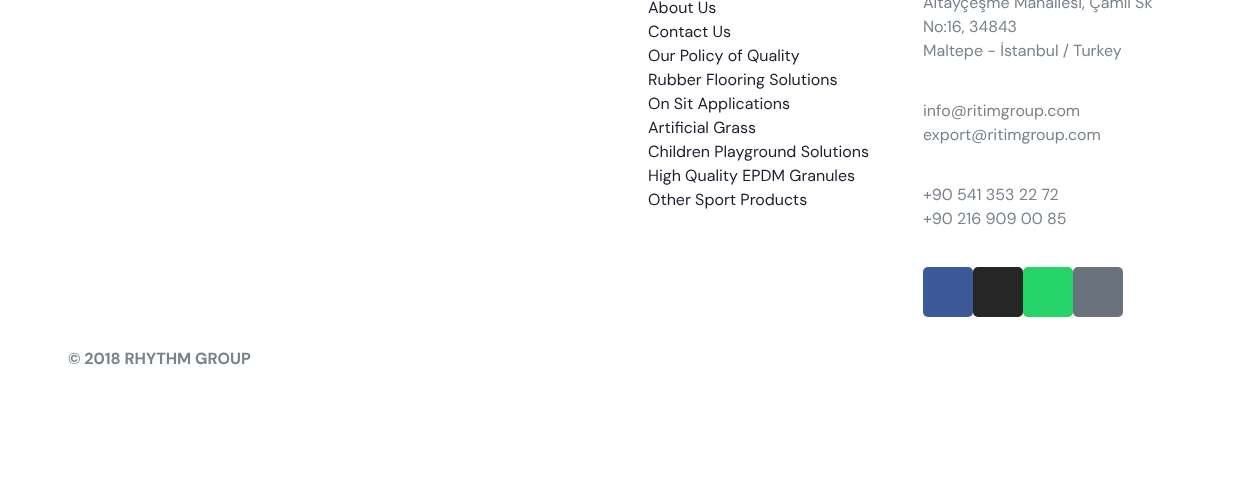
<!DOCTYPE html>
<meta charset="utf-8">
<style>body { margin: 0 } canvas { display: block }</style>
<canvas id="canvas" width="1255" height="495"></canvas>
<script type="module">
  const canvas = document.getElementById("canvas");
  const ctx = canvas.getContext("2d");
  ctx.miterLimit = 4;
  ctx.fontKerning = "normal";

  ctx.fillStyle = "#ffffff";
  ctx.fillRect(0, 0, 1255, 495);
  ctx.font = "16px DM Sans";
  ctx.fillStyle = "#1b1f2e";
  ctx.fillText("About Us", 648, 13);
  ctx.fillText("Contact Us", 648, 37);
  ctx.fillText("Our Policy of Quality", 648, 61);
  ctx.fillText("Rubber Flooring Solutions", 648, 85);
  ctx.fillText("On Sit Applications", 648, 109);
  ctx.fillText("Artificial Grass", 648, 133);
  ctx.fillText("Children Playground Solutions", 648, 157);
  ctx.fillText("High Quality EPDM Granules", 648, 181);
  ctx.fillText("Other Sport Products", 648, 205);
  ctx.fillStyle = "#7a838b";
  ctx.fillText("Altayçeşme Mahallesi, Çamlı Sk", 923, 8);
  ctx.fillText("No:16, 34843", 923, 32);
  ctx.fillText("Maltepe - İstanbul / Turkey", 923, 56);
  ctx.fillText("info@ritimgroup.com", 923, 116);
  ctx.fillText("export@ritimgroup.com", 923, 140);
  ctx.fillText("+90 541 353 22 72", 923, 200);
  ctx.fillText("+90 216 909 00 85", 923, 224);
  ctx.fillStyle = "#3b5998";
  ctx.beginPath();
  ctx.roundRect(923, 267, 50, 50, 5);
  ctx.fill();
  ctx.fillStyle = "#262626";
  ctx.beginPath();
  ctx.roundRect(973, 267, 50, 50, 5);
  ctx.fill();
  ctx.fillStyle = "#25d366";
  ctx.beginPath();
  ctx.roundRect(1023, 267, 50, 50, 5);
  ctx.fill();
  ctx.fillStyle = "#69727d";
  ctx.beginPath();
  ctx.roundRect(1073, 267, 50, 50, 5);
  ctx.fill();
  ctx.font = "bold 16px DM Sans";
  ctx.fillStyle = "#7a838b";
  ctx.fillText("© 2018 RHYTHM GROUP", 68, 364);
</script>
